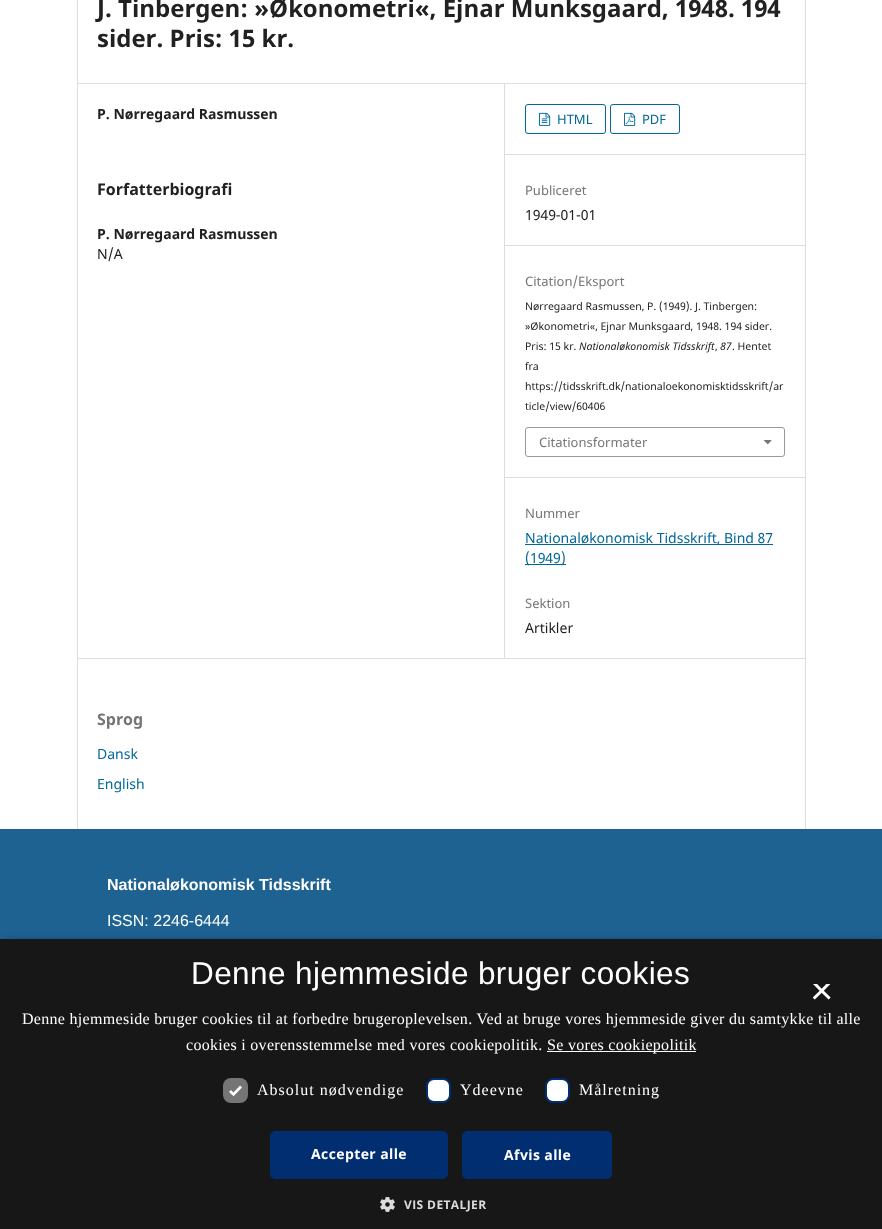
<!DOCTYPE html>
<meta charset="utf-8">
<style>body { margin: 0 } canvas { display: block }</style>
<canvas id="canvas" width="882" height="1229"></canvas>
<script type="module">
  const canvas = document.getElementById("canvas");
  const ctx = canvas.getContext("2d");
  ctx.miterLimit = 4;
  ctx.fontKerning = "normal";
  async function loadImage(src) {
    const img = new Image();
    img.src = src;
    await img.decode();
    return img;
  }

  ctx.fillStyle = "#ffffff";
  ctx.fillRect(0, 0, 882, 1229);
  ctx.fillStyle = "#dddddd";
  ctx.fillRect(77, 83, 728, 1);
  ctx.fillRect(77, 658, 728, 1);
  ctx.fillRect(77, 0, 1, 829);
  ctx.font = "bold 24px Noto Sans";
  ctx.fillStyle = "#212121";
  ctx.fillText("J. Tinbergen: »Økonometri«, Ejnar Munksgaard, 1948. 194", 97, 17);
  ctx.fillText("sider. Pris: 15 kr.", 97, 47);
  ctx.font = "bold 14px Noto Sans";
  ctx.fillText("P. Nørregaard Rasmussen", 97, 119);
  ctx.font = "bold 16px Noto Sans";
  ctx.fillText("Forfatterbiografi", 97, 195);
  ctx.font = "bold 14px Noto Sans";
  ctx.fillText("P. Nørregaard Rasmussen", 97, 239);
  ctx.font = "14px Noto Sans";
  ctx.fillText("N/A", 97, 259);
  ctx.fillStyle = "#dddddd";
  ctx.fillRect(504, 84, 1, 574);
  ctx.fillRect(505, 154, 300, 1);
  ctx.beginPath();
  ctx.roundRect(525.5, 104.5, 80, 29, 2.5);
  ctx.strokeStyle = "#006798";
  ctx.stroke();
  ctx.drawImage(await loadImage("img1.png"), 539, 112, 12, 14);
  ctx.font = "13px Noto Sans";
  ctx.fillStyle = "#006798";
  ctx.fillText("HTML", 557, 124);
  ctx.beginPath();
  ctx.roundRect(610.5, 104.5, 69, 29, 2.5);
  ctx.stroke();
  ctx.drawImage(await loadImage("img2.png"), 624, 112, 12, 14);
  ctx.fillText("PDF", 642, 124);
  ctx.fillStyle = "#dddddd";
  ctx.fillRect(505, 245, 300, 1);
  ctx.fillStyle = "#757575";
  ctx.fillText("Publiceret", 525, 195);
  ctx.font = "14px Noto Sans";
  ctx.fillStyle = "#212121";
  ctx.fillText("1949-01-01", 525, 220);
  ctx.fillStyle = "#dddddd";
  ctx.fillRect(505, 477, 300, 1);
  ctx.font = "13px Noto Sans";
  ctx.fillStyle = "#757575";
  ctx.fillText("Citation/Eksport", 525, 286);
  ctx.font = "10.5px Noto Sans";
  ctx.fillStyle = "#212121";
  ctx.fillText("Nørregaard Rasmussen, P. (1949). J. Tinbergen:", 525, 310);
  ctx.fillText("»Økonometri«, Ejnar Munksgaard, 1948. 194 sider.", 525, 330);
  ctx.fillText("Pris: 15 kr.", 525, 350);
  ctx.font = "italic 10.5px Noto Sans";
  ctx.fillText("Nationaløkonomisk Tidsskrift", 579, 350);
  ctx.font = "10.5px Noto Sans";
  ctx.fillText(",", 715, 350);
  ctx.font = "italic 10.5px Noto Sans";
  ctx.fillText("87", 720, 350);
  ctx.font = "10.5px Noto Sans";
  ctx.fillText(". Hentet", 732, 350);
  ctx.fillText("fra", 525, 370);
  ctx.fillText("https://tidsskrift.dk/nationaloekonomisktidsskrift/ar", 525, 390);
  ctx.fillText("ticle/view/60406", 525, 410);
  ctx.beginPath();
  ctx.roundRect(525.5, 427.5, 259, 29, 2.5);
  ctx.strokeStyle = "#999999";
  ctx.stroke();
  ctx.font = "13px Noto Sans";
  ctx.fillStyle = "#757575";
  ctx.fillText("Citationsformater", 539, 447);
  ctx.drawImage(await loadImage("img3.png"), 764, 440, 8, 5);
  ctx.fillText("Nummer", 525, 518);
  ctx.fillStyle = "#006798";
  ctx.fillRect(525, 544, 248, 1);
  ctx.font = "14px Noto Sans";
  ctx.fillText("Nationaløkonomisk Tidsskrift, Bind 87", 525, 543);
  ctx.fillRect(525, 564, 41, 1);
  ctx.fillText("(1949)", 525, 563);
  ctx.font = "13px Noto Sans";
  ctx.fillStyle = "#757575";
  ctx.fillText("Sektion", 525, 608);
  ctx.font = "14px Noto Sans";
  ctx.fillStyle = "#212121";
  ctx.fillText("Artikler", 525, 633);
  ctx.fillStyle = "#dddddd";
  ctx.fillRect(805, 0, 1, 829);
  ctx.font = "bold 16px Noto Sans";
  ctx.fillStyle = "#757575";
  ctx.fillText("Sprog", 97, 725);
  ctx.font = "14px Noto Sans";
  ctx.fillStyle = "#006798";
  ctx.fillText("Dansk", 97, 759);
  ctx.fillText("English", 97, 789);
  ctx.fillStyle = "#1e6292";
  ctx.fillRect(0, 829, 882, 110);
  ctx.font = "bold 16px Liberation Sans";
  ctx.fillStyle = "#ffffff";
  ctx.fillText("Nationaløkonomisk Tidsskrift", 107, 890);
  ctx.font = "16px Liberation Sans";
  ctx.fillText("ISSN: 2246-6444", 107, 926);
  ctx.fillStyle = "rgba(0, 0, 0, 0.35)";
  ctx.filter = "blur(4px)";
  ctx.beginPath();
  ctx.rect(1, 941, 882, 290);
  ctx.fill();
  ctx.filter = "none";
  ctx.fillStyle = "#171717";
  ctx.fillRect(0, 939, 882, 290);
  ctx.letterSpacing = "0.4px";
  ctx.font = "31.5px Liberation Sans";
  ctx.fillStyle = "#ffffff";
  ctx.fillText("Denne hjemmeside bruger cookies", 191, 984);
  ctx.save();
  ctx.beginPath();
  ctx.rect(807, 984, 30, 30);
  ctx.clip();
  ctx.letterSpacing = "0px";
  ctx.font = "40px Liberation Sans";
  ctx.fillText("×", 810, 1004);
  ctx.restore();
  ctx.letterSpacing = "0.3px";
  ctx.font = "16px Liberation Serif";
  ctx.fillText("Denne hjemmeside bruger cookies til at forbedre brugeroplevelsen. Ved at bruge vores hjemmeside giver du samtykke til alle", 22, 1024);
  ctx.fillText("cookies i overensstemmelse med vores cookiepolitik.", 186, 1050);
  ctx.fillRect(547, 1051, 149, 1);
  ctx.fillText("Se vores cookiepolitik", 547, 1050);
  ctx.fillStyle = "#757575";
  ctx.beginPath();
  ctx.roundRect(223, 1078, 25, 25, 8);
  ctx.fill();
  ctx.beginPath();
  ctx.moveTo(230, 1091);
  ctx.lineTo(233.5, 1094.5);
  ctx.lineTo(241, 1086.5);
  ctx.strokeStyle = "#ffffff";
  ctx.lineWidth = 2.6;
  ctx.stroke();
  ctx.letterSpacing = "1px";
  ctx.fillStyle = "#ffffff";
  ctx.fillText("Absolut nødvendige", 257, 1095);
  ctx.beginPath();
  ctx.roundRect(427, 1079, 23, 23, 7);
  ctx.fill();
  ctx.strokeStyle = "#002e70";
  ctx.lineWidth = 2;
  ctx.stroke();
  ctx.fillText("Ydeevne", 460, 1095);
  ctx.beginPath();
  ctx.roundRect(546, 1079, 23, 23, 7);
  ctx.fill();
  ctx.stroke();
  ctx.fillText("Målretning", 579, 1095);
  ctx.fillStyle = "#002e70";
  ctx.beginPath();
  ctx.roundRect(270.5, 1131.5, 177, 47, 4.5);
  ctx.fill();
  ctx.lineWidth = 1;
  ctx.stroke();
  ctx.letterSpacing = "0.4px";
  ctx.font = "bold 14px Open Sans";
  ctx.fillStyle = "#ffffff";
  ctx.fillText("Accepter alle", 311, 1159);
  ctx.fillStyle = "#002e70";
  ctx.beginPath();
  ctx.roundRect(462.5, 1131.5, 149, 47, 4.5);
  ctx.fill();
  ctx.stroke();
  ctx.fillStyle = "#ffffff";
  ctx.fillText("Afvis alle", 504, 1160);
  ctx.drawImage(await loadImage("img4.png"), 380, 1197, 15, 15);
  ctx.font = "bold 12px Open Sans";
  ctx.fillStyle = "#dcdcdc";
  ctx.fillText("VIS DETALJER", 404, 1209);
</script>
